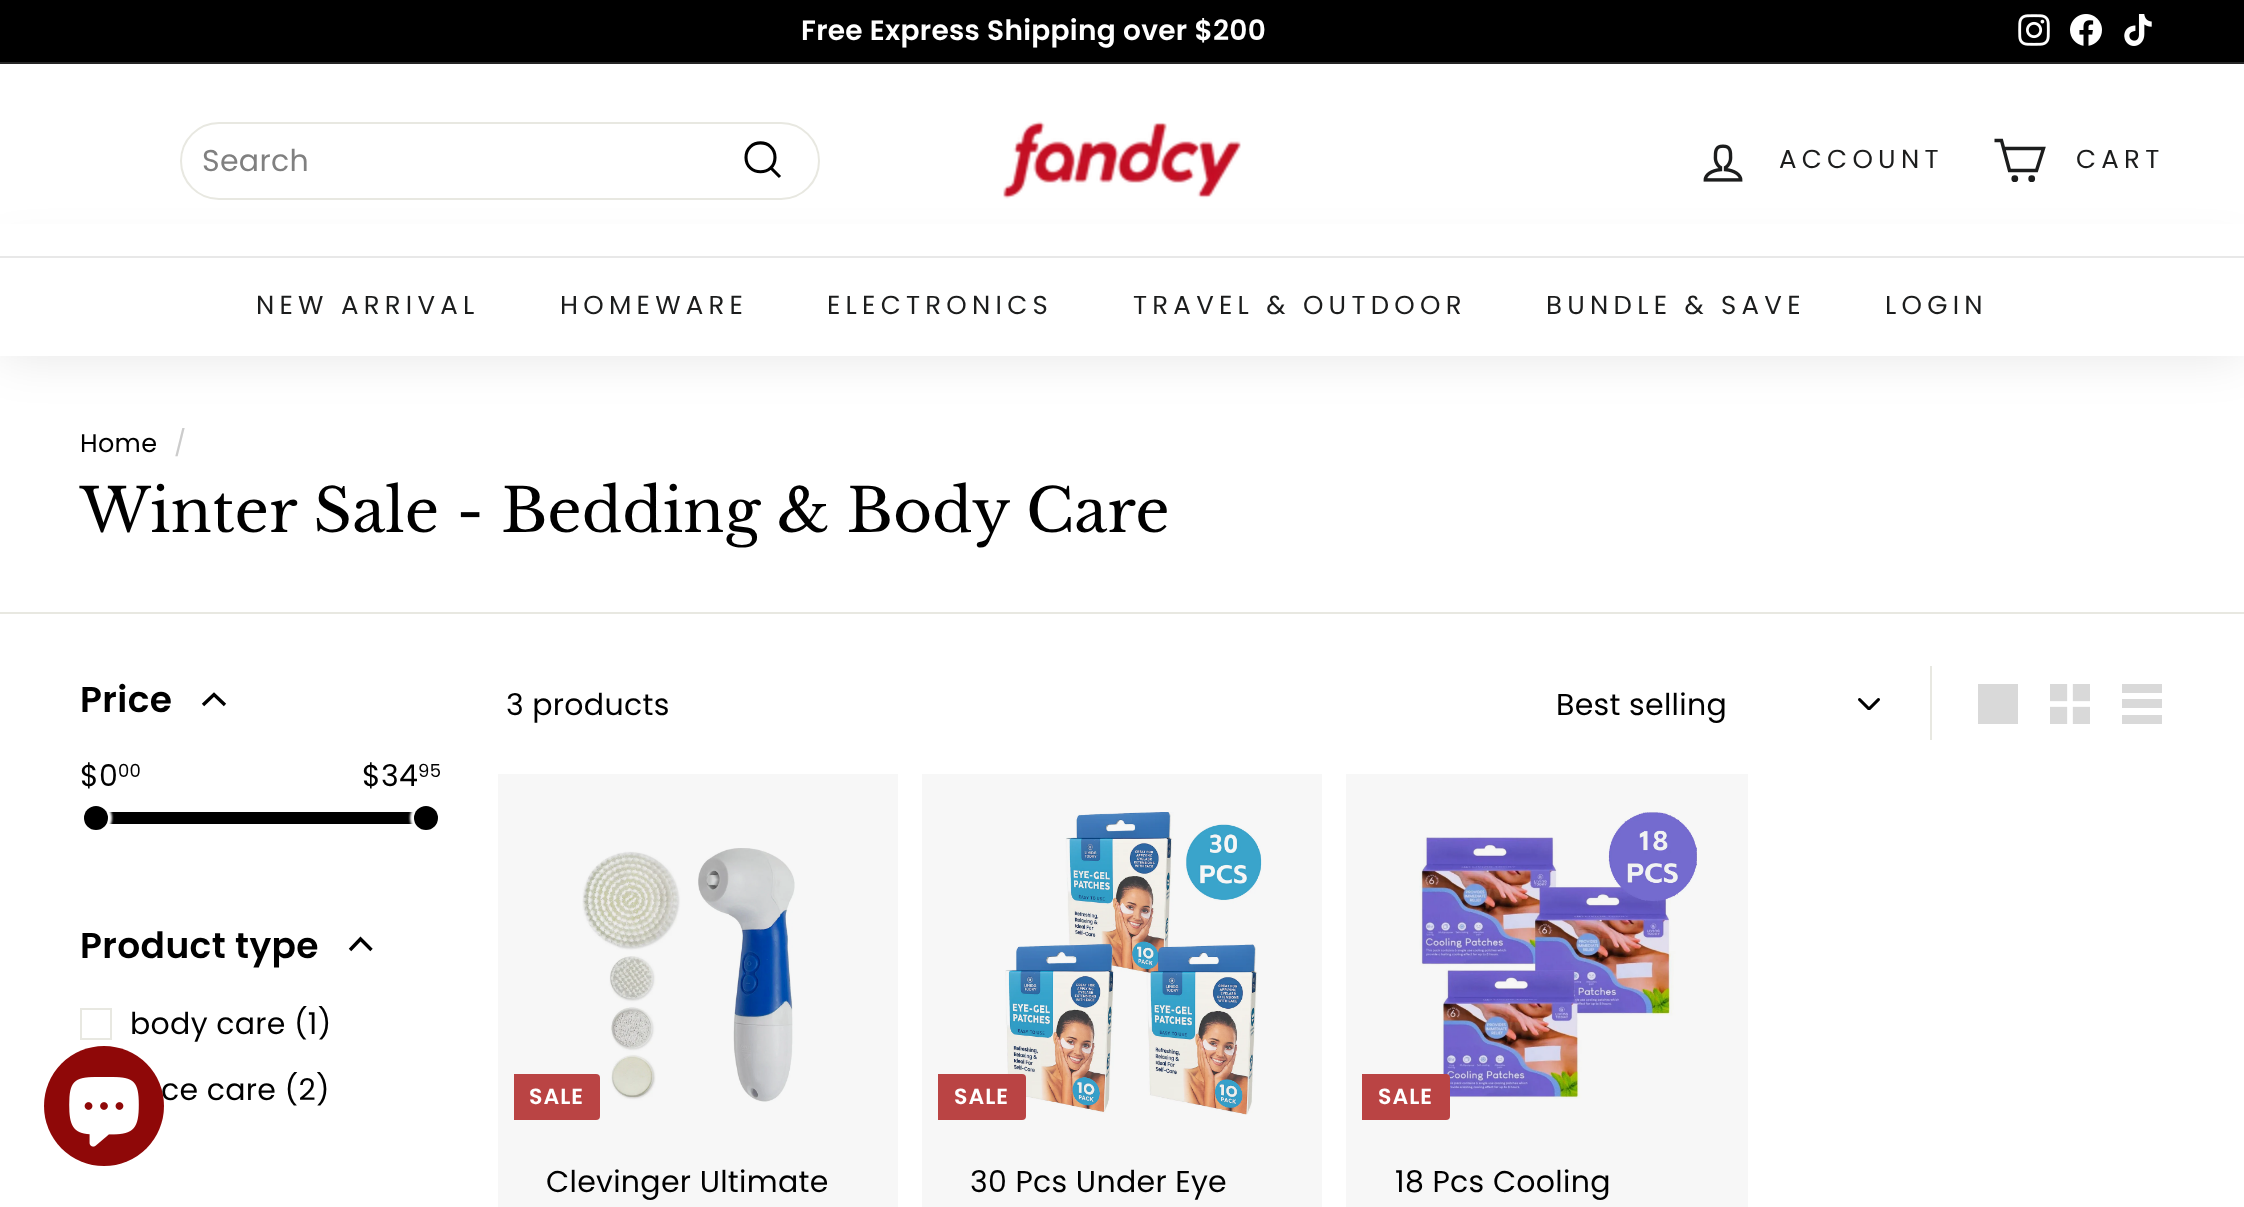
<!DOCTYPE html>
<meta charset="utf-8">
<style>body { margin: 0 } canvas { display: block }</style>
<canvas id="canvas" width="2244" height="1207"></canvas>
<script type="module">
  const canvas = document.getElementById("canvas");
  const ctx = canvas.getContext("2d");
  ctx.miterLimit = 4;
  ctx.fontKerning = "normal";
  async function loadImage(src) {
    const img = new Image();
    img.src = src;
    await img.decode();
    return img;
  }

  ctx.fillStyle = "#ffffff";
  ctx.fillRect(0, 0, 2244, 1207);
  ctx.fillStyle = "#f7f7f7";
  ctx.fillRect(1346, 774, 402, 433);
  ctx.fillRect(922, 774, 400, 433);
  ctx.fillRect(498, 774, 400, 433);
  ctx.fillStyle = "#000000";
  ctx.fillRect(0, 0, 2244, 62);
  ctx.letterSpacing = "0.3px";
  ctx.font = "600 28px Poppins";
  ctx.fillStyle = "#ffffff";
  ctx.fillText("Free Express Shipping over $200", 801, 40);
  ctx.drawImage(await loadImage("img1.png"), 2018, 14, 32, 32);
  ctx.drawImage(await loadImage("img2.png"), 2070, 14, 32, 32);
  ctx.drawImage(await loadImage("img3.png"), 2124, 14, 28, 32);
  ctx.fillStyle = "#262626";
  ctx.fillRect(0, 62, 2244, 2);
  ctx.fillStyle = "rgba(0, 0, 0, 0.1)";
  ctx.filter = "blur(25px)";
  ctx.beginPath();
  ctx.rect(0, 256, 2244, 100);
  ctx.fill();
  ctx.filter = "none";
  ctx.fillStyle = "#ffffff";
  ctx.fillRect(0, 224, 2244, 32);
  ctx.beginPath();
  ctx.roundRect(181, 123, 638, 76, 38);
  ctx.strokeStyle = "#e8e8e1";
  ctx.lineWidth = 2;
  ctx.stroke();
  ctx.font = "30px Poppins";
  ctx.fillStyle = "#808080";
  ctx.fillText("Search", 202, 171);
  ctx.beginPath();
  ctx.moveTo(775, 157.5);
  ctx.bezierCurveTo(775, 176.5, 746, 176.5, 746, 157.5);
  ctx.bezierCurveTo(746, 138, 775, 138, 775, 157.5);
  ctx.closePath();
  ctx.moveTo(780, 177);
  ctx.lineTo(771, 168);
  ctx.strokeStyle = "#000000";
  ctx.lineWidth = 3.1;
  ctx.stroke();
  ctx.drawImage(await loadImage("img4.png"), 1003, 121, 238, 78);
  ctx.drawImage(await loadImage("img5.png"), 1703, 144, 40, 38);
  ctx.letterSpacing = "5.25px";
  ctx.font = "26px Poppins";
  ctx.fillStyle = "#1c1d1d";
  ctx.fillText("ACCOUNT", 1779, 168);
  ctx.beginPath();
  ctx.moveTo(2004, 148.5);
  ctx.lineTo(2043.5, 148.5);
  ctx.lineTo(2036.5, 170.5);
  ctx.lineTo(2009.5, 170.5);
  ctx.lineTo(2001.5, 140.5);
  ctx.lineTo(1994.5, 140.5);
  ctx.strokeStyle = "#1c1d1d";
  ctx.lineWidth = 3.4;
  ctx.stroke();
  ctx.beginPath();
  ctx.arc(2014.8, 178.7, 1.7, 0, Math.PI * 2);
  ctx.stroke();
  ctx.beginPath();
  ctx.arc(2031.7, 178.7, 1.7, 0, Math.PI * 2);
  ctx.stroke();
  ctx.fillText("CART", 2076, 168);
  ctx.fillStyle = "#ffffff";
  ctx.fillRect(0, 258, 2244, 98);
  ctx.fillStyle = "#e8e8e8";
  ctx.fillRect(0, 256, 2244, 2);
  ctx.fillStyle = "#1c1d1d";
  ctx.fillText("NEW ARRIVAL", 256, 314);
  ctx.fillText("HOMEWARE", 560, 314);
  ctx.fillText("ELECTRONICS", 827, 314);
  ctx.fillText("TRAVEL & OUTDOOR", 1133, 314);
  ctx.fillText("BUNDLE & SAVE", 1546, 314);
  ctx.fillText("LOGIN", 1885, 314);
  ctx.letterSpacing = "0.3px";
  ctx.font = "25.5px Poppins";
  ctx.fillStyle = "#000000";
  ctx.fillText("Home", 80, 452);
  ctx.fillStyle = "#cccccc";
  ctx.fillText("/", 174, 452);
  ctx.letterSpacing = "0px";
  ctx.font = "60px Libre Baskerville";
  ctx.fillStyle = "#000000";
  ctx.fillText("Winter Sale - Bedding & Body Care", 80, 532);
  ctx.fillStyle = "#e8e8e1";
  ctx.fillRect(0, 612, 2244, 2);
  ctx.letterSpacing = "0.4px";
  ctx.font = "600 36px Poppins";
  ctx.fillStyle = "#000000";
  ctx.fillText("Price", 80, 712);
  ctx.beginPath();
  ctx.moveTo(225, 705);
  ctx.lineTo(214, 694.5);
  ctx.lineTo(203, 705);
  ctx.strokeStyle = "#000000";
  ctx.stroke();
  ctx.letterSpacing = "0.3px";
  ctx.font = "30px Poppins";
  ctx.fillText("$0", 80, 786);
  ctx.font = "18px Poppins";
  ctx.fillText("00", 118, 777);
  ctx.font = "30px Poppins";
  ctx.fillText("$34", 362, 786);
  ctx.font = "18px Poppins";
  ctx.fillText("95", 418, 777);
  ctx.fillRect(106, 812, 310, 12);
  ctx.fillStyle = "#ffffff";
  ctx.filter = "blur(1px)";
  ctx.beginPath();
  ctx.roundRect(80, 802, 32, 32, 16);
  ctx.fill();
  ctx.filter = "none";
  ctx.fillStyle = "#000000";
  ctx.beginPath();
  ctx.arc(96, 818, 12, 0, Math.PI * 2);
  ctx.fill();
  ctx.fillStyle = "#ffffff";
  ctx.filter = "blur(1px)";
  ctx.beginPath();
  ctx.roundRect(410, 802, 32, 32, 16);
  ctx.fill();
  ctx.filter = "none";
  ctx.fillStyle = "#000000";
  ctx.beginPath();
  ctx.arc(426, 818, 12, 0, Math.PI * 2);
  ctx.fill();
  ctx.letterSpacing = "0.4px";
  ctx.font = "600 36px Poppins";
  ctx.fillText("Product type", 80, 958);
  ctx.beginPath();
  ctx.moveTo(371.5, 950);
  ctx.lineTo(360.5, 939);
  ctx.lineTo(350, 950);
  ctx.stroke();
  ctx.strokeStyle = "#e8e8e1";
  ctx.lineWidth = 2;
  ctx.strokeRect(81, 1009, 30, 30);
  ctx.letterSpacing = "0.3px";
  ctx.font = "30px Poppins";
  ctx.fillText("body care (1)", 130, 1034);
  ctx.fillText("ce care (2)", 161, 1100);
  ctx.fillText("3 products", 506, 715);
  ctx.fillStyle = "#e8e8e1";
  ctx.fillRect(1930, 666, 2, 74);
  ctx.drawImage(await loadImage("img6.png"), 1858, 698, 22, 12);
  ctx.fillStyle = "#000000";
  ctx.fillText("Best selling", 1556, 715);
  ctx.fillStyle = "#d9d9d9";
  ctx.fillRect(1978, 684, 40, 40);
  ctx.drawImage(await loadImage("img7.png"), 2050, 684, 40, 40);
  ctx.beginPath();
  ctx.moveTo(2122, 684);
  ctx.lineTo(2162, 684);
  ctx.lineTo(2162, 693);
  ctx.lineTo(2122, 693);
  ctx.closePath();
  ctx.moveTo(2122, 699);
  ctx.lineTo(2162, 699);
  ctx.lineTo(2162, 708);
  ctx.lineTo(2122, 708);
  ctx.closePath();
  ctx.moveTo(2122, 715);
  ctx.lineTo(2162, 715);
  ctx.lineTo(2162, 724);
  ctx.lineTo(2122, 724);
  ctx.closePath();
  ctx.fill();
  ctx.drawImage(await loadImage("img8.png"), 582, 848, 213, 254);
  ctx.fillStyle = "#ba4444";
  ctx.beginPath();
  ctx.roundRect(514, 1074, 86, 46, [0, 4, 4, 0]);
  ctx.fill();
  ctx.letterSpacing = "1px";
  ctx.font = "600 22px Poppins";
  ctx.fillStyle = "#ffffff";
  ctx.fillText("SALE", 529, 1104);
  ctx.letterSpacing = "0.3px";
  ctx.font = "30px Poppins";
  ctx.fillStyle = "#000000";
  ctx.fillText("Clevinger Ultimate", 546, 1192);
  ctx.drawImage(await loadImage("img9.png"), 1005, 812, 257, 303);
  ctx.fillStyle = "#ba4444";
  ctx.beginPath();
  ctx.roundRect(938, 1074, 88, 46, [0, 4, 4, 0]);
  ctx.fill();
  ctx.letterSpacing = "1px";
  ctx.font = "600 22px Poppins";
  ctx.fillStyle = "#ffffff";
  ctx.fillText("SALE", 954, 1104);
  ctx.letterSpacing = "0.3px";
  ctx.font = "30px Poppins";
  ctx.fillStyle = "#000000";
  ctx.fillText("30 Pcs Under Eye", 970, 1192);
  ctx.drawImage(await loadImage("img10.png"), 1419, 812, 278, 287);
  ctx.fillStyle = "#ba4444";
  ctx.beginPath();
  ctx.roundRect(1362, 1074, 88, 46, [0, 4, 4, 0]);
  ctx.fill();
  ctx.letterSpacing = "1px";
  ctx.font = "600 22px Poppins";
  ctx.fillStyle = "#ffffff";
  ctx.fillText("SALE", 1378, 1104);
  ctx.letterSpacing = "0.3px";
  ctx.font = "30px Poppins";
  ctx.fillStyle = "#000000";
  ctx.fillText("18 Pcs Cooling", 1395, 1192);
  ctx.fillStyle = "#8f0808";
  ctx.beginPath();
  ctx.arc(104, 1106, 60, 0, Math.PI * 2);
  ctx.fill();
  ctx.drawImage(await loadImage("img11.png"), 69, 1077, 70, 70);
</script>
